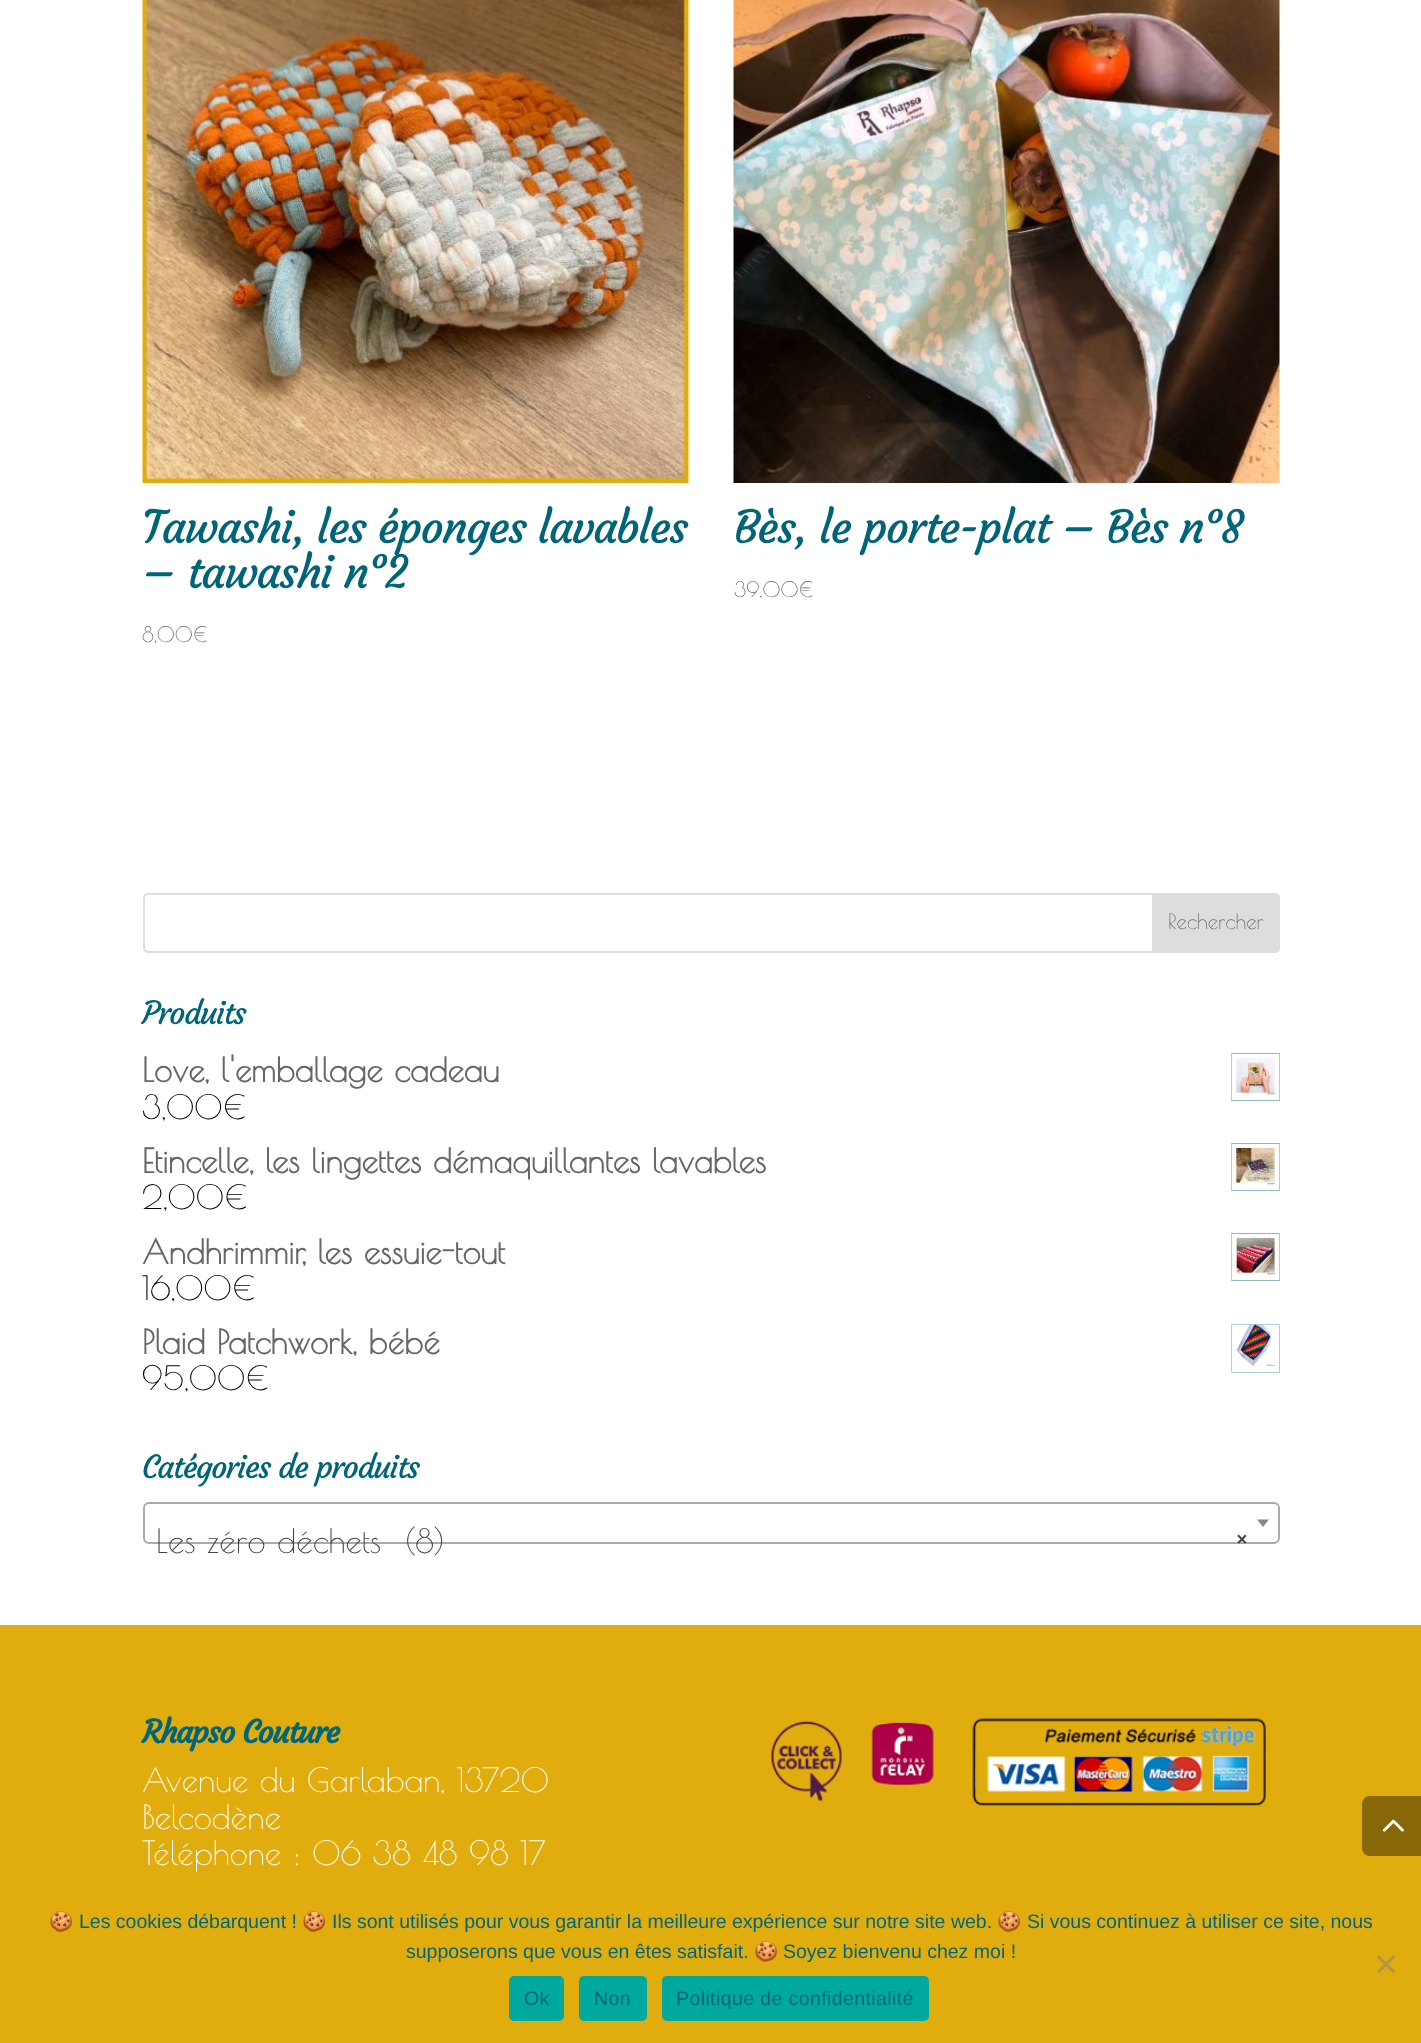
<!DOCTYPE html>
<meta charset="utf-8">
<style>body { margin: 0 } canvas { display: block }</style>
<canvas id="canvas" width="1421" height="2043"></canvas>
<script type="module">
  const canvas = document.getElementById("canvas");
  const ctx = canvas.getContext("2d");
  ctx.miterLimit = 4;
  ctx.fontKerning = "normal";
  async function loadImage(src) {
    const img = new Image();
    img.src = src;
    await img.decode();
    return img;
  }

  ctx.fillStyle = "#ffffff";
  ctx.fillRect(0, 0, 1421, 2043);
  ctx.drawImage(await loadImage("img1.png"), 142, 0, 547, 483);
  ctx.letterSpacing = "-1.5px";
  ctx.font = "45px Courgette";
  ctx.fillStyle = "#006579";
  ctx.fillText("Tawashi, les éponges lavables", 142, 543);
  ctx.fillText("– tawashi n°2", 142, 588);
  ctx.letterSpacing = "0px";
  ctx.font = "21px Poiret One";
  ctx.fillStyle = "#666666";
  ctx.fillText("8,00€", 142, 642);
  ctx.drawImage(await loadImage("img2.png"), 733, 0, 547, 483);
  ctx.letterSpacing = "-1.5px";
  ctx.font = "45px Courgette";
  ctx.fillStyle = "#006579";
  ctx.fillText("Bès, le porte-plat – Bès n°8", 734, 543);
  ctx.letterSpacing = "0px";
  ctx.font = "21px Poiret One";
  ctx.fillStyle = "#666666";
  ctx.fillText("39,00€", 734, 597);
  ctx.beginPath();
  ctx.roundRect(144, 894, 1135, 58, 4);
  ctx.strokeStyle = "#dddddd";
  ctx.lineWidth = 2;
  ctx.stroke();
  ctx.fillStyle = "#dddddd";
  ctx.beginPath();
  ctx.roundRect(1153, 894, 126, 58, [0, 4, 4, 0]);
  ctx.fill();
  ctx.stroke();
  ctx.fillStyle = "#666666";
  ctx.fillText("Rechercher", 1168, 929);
  ctx.letterSpacing = "-1.5px";
  ctx.font = "31.5px Courgette";
  ctx.fillStyle = "#006579";
  ctx.fillText("Produits", 142, 1024);
  ctx.letterSpacing = "0px";
  ctx.font = "bold 33px Poiret One";
  ctx.fillStyle = "#666666";
  ctx.fillText("Love, l'emballage cadeau", 142, 1082);
  ctx.drawImage(await loadImage("img3.png"), 1231, 1053, 49, 48);
  ctx.font = "33px Poiret One";
  ctx.fillStyle = "#000000";
  ctx.fillText("3,00€", 142, 1119);
  ctx.font = "bold 33px Poiret One";
  ctx.fillStyle = "#666666";
  ctx.fillText("Etincelle, les lingettes démaquillantes lavables", 142, 1173);
  ctx.drawImage(await loadImage("img4.png"), 1231, 1143, 49, 48);
  ctx.font = "33px Poiret One";
  ctx.fillStyle = "#000000";
  ctx.fillText("2,00€", 142, 1209);
  ctx.font = "bold 33px Poiret One";
  ctx.fillStyle = "#666666";
  ctx.fillText("Andhrimmir, les essuie-tout", 142, 1264);
  ctx.drawImage(await loadImage("img5.png"), 1231, 1233, 49, 48);
  ctx.font = "33px Poiret One";
  ctx.fillStyle = "#000000";
  ctx.fillText("16,00€", 142, 1300);
  ctx.font = "bold 33px Poiret One";
  ctx.fillStyle = "#666666";
  ctx.fillText("Plaid Patchwork, bébé", 142, 1354);
  ctx.drawImage(await loadImage("img6.png"), 1231, 1324, 49, 49);
  ctx.font = "33px Poiret One";
  ctx.fillStyle = "#000000";
  ctx.fillText("95,00€", 142, 1390);
  ctx.letterSpacing = "-1.5px";
  ctx.font = "31.5px Courgette";
  ctx.fillStyle = "#006579";
  ctx.fillText("Catégories de produits", 142, 1478);
  ctx.beginPath();
  ctx.roundRect(144, 1503, 1135, 40, 5);
  ctx.strokeStyle = "#aaaaaa";
  ctx.stroke();
  ctx.fillStyle = "#888888";
  ctx.beginPath();
  ctx.moveTo(1257, 1519.5);
  ctx.lineTo(1269, 1519.5);
  ctx.lineTo(1263, 1527);
  ctx.closePath();
  ctx.fill();
  ctx.letterSpacing = "0px";
  ctx.font = "33px Poiret One";
  ctx.fillStyle = "#444444";
  ctx.fillText("Les zéro déchets  (8)", 156, 1553);
  ctx.font = "bold 33px Poiret One";
  ctx.fillText("×", 1235, 1553);
  ctx.fillStyle = "#e1ac0e";
  ctx.fillRect(0, 1625, 1421, 418);
  ctx.letterSpacing = "-1.5px";
  ctx.font = "bold 31.5px Courgette";
  ctx.fillStyle = "#006579";
  ctx.fillText("Rhapso Couture", 142, 1743);
  ctx.letterSpacing = "0px";
  ctx.font = "33px Poiret One";
  ctx.fillStyle = "#ffffff";
  ctx.fillText("Avenue du Garlaban, 13720", 142, 1792);
  ctx.fillText("Belcodène", 142, 1829);
  ctx.fillText("Téléphone : 06 38 48 98 17", 142, 1865);
  ctx.drawImage(await loadImage("img7.png"), 771, 1718, 495, 88);
  ctx.fillStyle = "#876708";
  ctx.beginPath();
  ctx.moveTo(1370, 1796);
  ctx.lineTo(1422, 1796);
  ctx.lineTo(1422, 1856);
  ctx.lineTo(1370, 1856);
  ctx.bezierCurveTo(1365.5, 1856, 1362, 1852.5, 1362, 1848);
  ctx.lineTo(1362, 1804);
  ctx.bezierCurveTo(1362, 1799.5, 1365.5, 1796, 1370, 1796);
  ctx.closePath();
  ctx.fill();
  ctx.drawImage(await loadImage("img8.png"), 1382, 1819, 22, 13);
  ctx.font = "19.5px Noto Color Emoji";
  ctx.fillStyle = "#006579";
  ctx.fillText("🍪", 49, 1928);
  ctx.font = "19.5px Liberation Sans";
  ctx.fillText("Les cookies débarquent !", 79, 1928);
  ctx.font = "19.5px Noto Color Emoji";
  ctx.fillText("🍪", 302, 1928);
  ctx.font = "19.5px Liberation Sans";
  ctx.fillText("Ils sont utilisés pour vous garantir la meilleure expérience sur notre site web.", 332, 1928);
  ctx.font = "19.5px Noto Color Emoji";
  ctx.fillText("🍪", 997, 1928);
  ctx.font = "19.5px Liberation Sans";
  ctx.fillText("Si vous continuez à utiliser ce site, nous", 1027, 1928);
  ctx.fillText("supposerons que vous en êtes satisfait.", 406, 1958);
  ctx.font = "19.5px Noto Color Emoji";
  ctx.fillText("🍪", 754, 1958);
  ctx.font = "19.5px Liberation Sans";
  ctx.fillText("Soyez bienvenu chez moi !", 783, 1958);
  ctx.fillStyle = "#b19647";
  ctx.beginPath();
  ctx.moveTo(1393, 1955);
  ctx.lineTo(1395, 1957.5);
  ctx.lineTo(1379, 1973.5);
  ctx.lineTo(1377, 1971);
  ctx.closePath();
  ctx.fill();
  ctx.beginPath();
  ctx.moveTo(1377, 1957.5);
  ctx.lineTo(1379, 1955);
  ctx.lineTo(1395, 1971);
  ctx.lineTo(1393, 1973.5);
  ctx.closePath();
  ctx.fill();
  ctx.fillStyle = "#00a99d";
  ctx.beginPath();
  ctx.roundRect(509, 1976, 55, 45, 5);
  ctx.fill();
  ctx.letterSpacing = "0.4px";
  ctx.fillStyle = "#006579";
  ctx.fillText("Ok", 524, 2005);
  ctx.fillStyle = "#00a99d";
  ctx.beginPath();
  ctx.roundRect(579, 1976, 68, 45, 5);
  ctx.fill();
  ctx.fillStyle = "#006579";
  ctx.fillText("Non", 594, 2005);
  ctx.fillStyle = "#00a99d";
  ctx.beginPath();
  ctx.roundRect(662, 1976, 267, 45, 5);
  ctx.fill();
  ctx.fillStyle = "#006579";
  ctx.fillText("Politique de confidentialité", 676, 2005);
</script>
